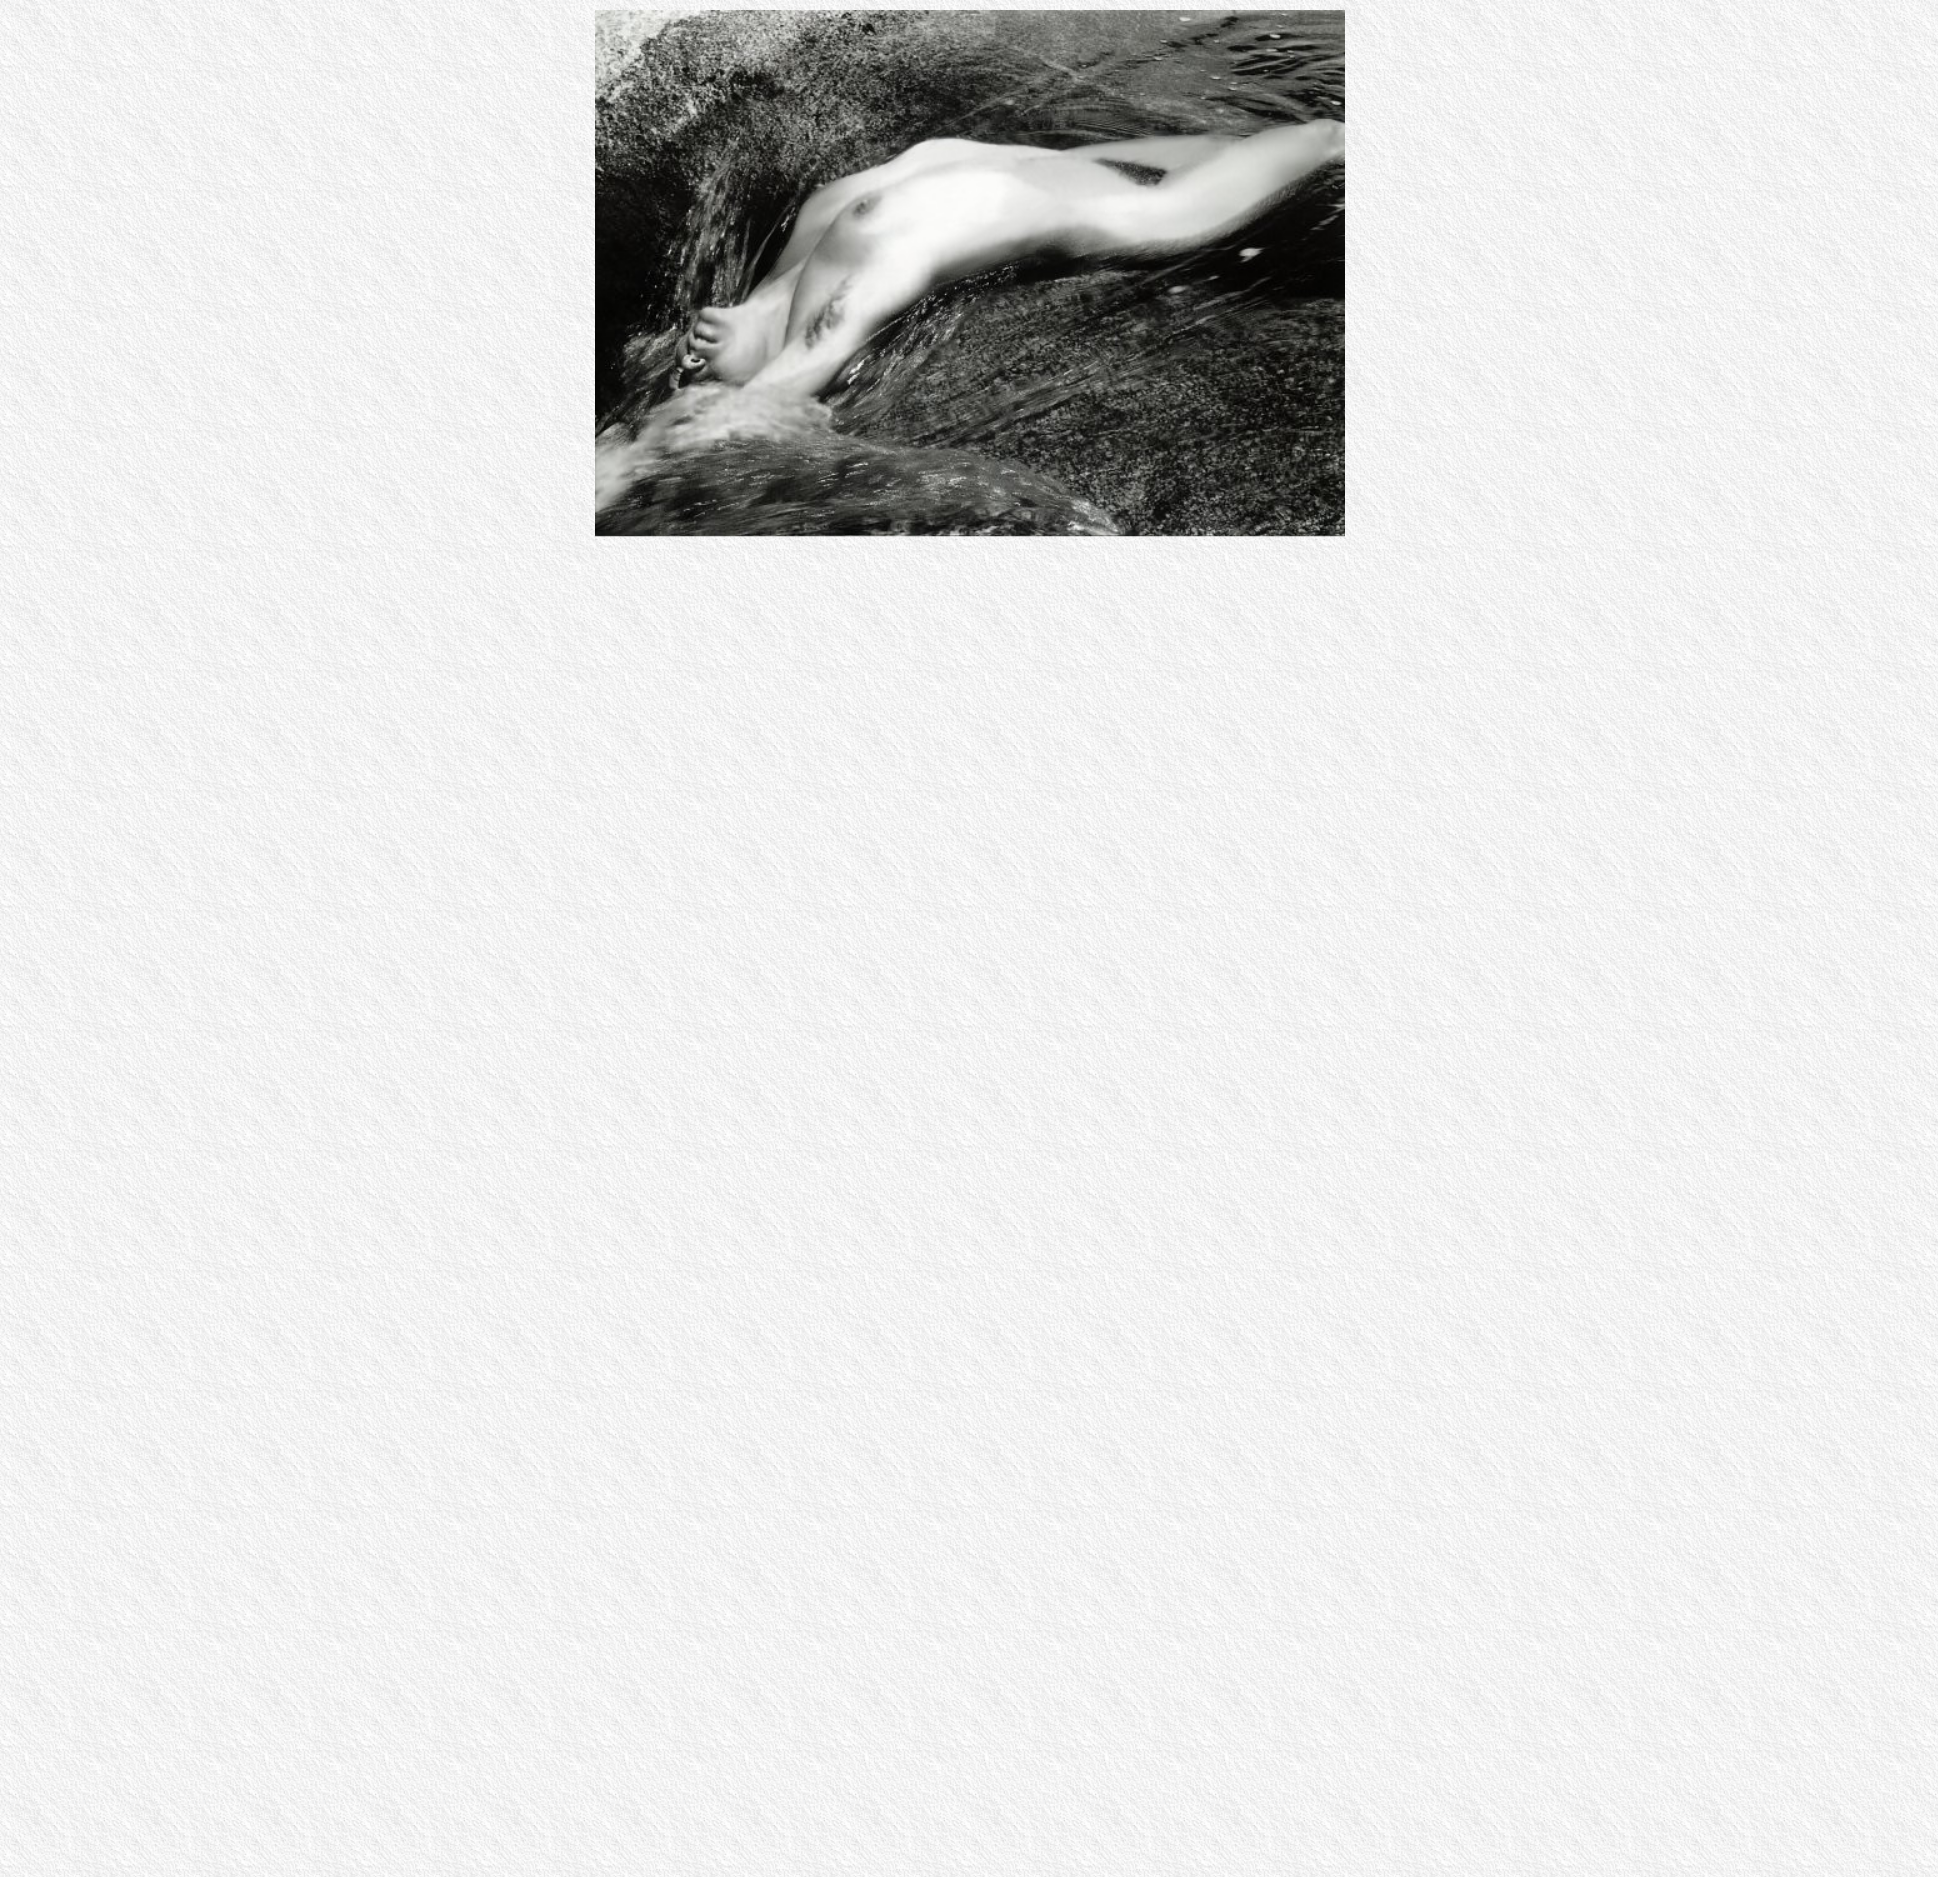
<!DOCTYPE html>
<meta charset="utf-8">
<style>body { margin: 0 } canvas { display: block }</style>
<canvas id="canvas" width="1938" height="1877"></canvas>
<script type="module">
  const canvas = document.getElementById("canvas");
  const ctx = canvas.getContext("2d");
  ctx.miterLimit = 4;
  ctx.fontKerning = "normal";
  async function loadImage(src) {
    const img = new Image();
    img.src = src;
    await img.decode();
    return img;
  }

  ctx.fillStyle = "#ffffff";
  ctx.fillRect(0, 0, 1938, 1877);
  ctx.drawImage(await loadImage("img1.png"), 0, 0, 1938, 1877);
  ctx.drawImage(await loadImage("img2.png"), 595, 10, 750, 527);
</script>
